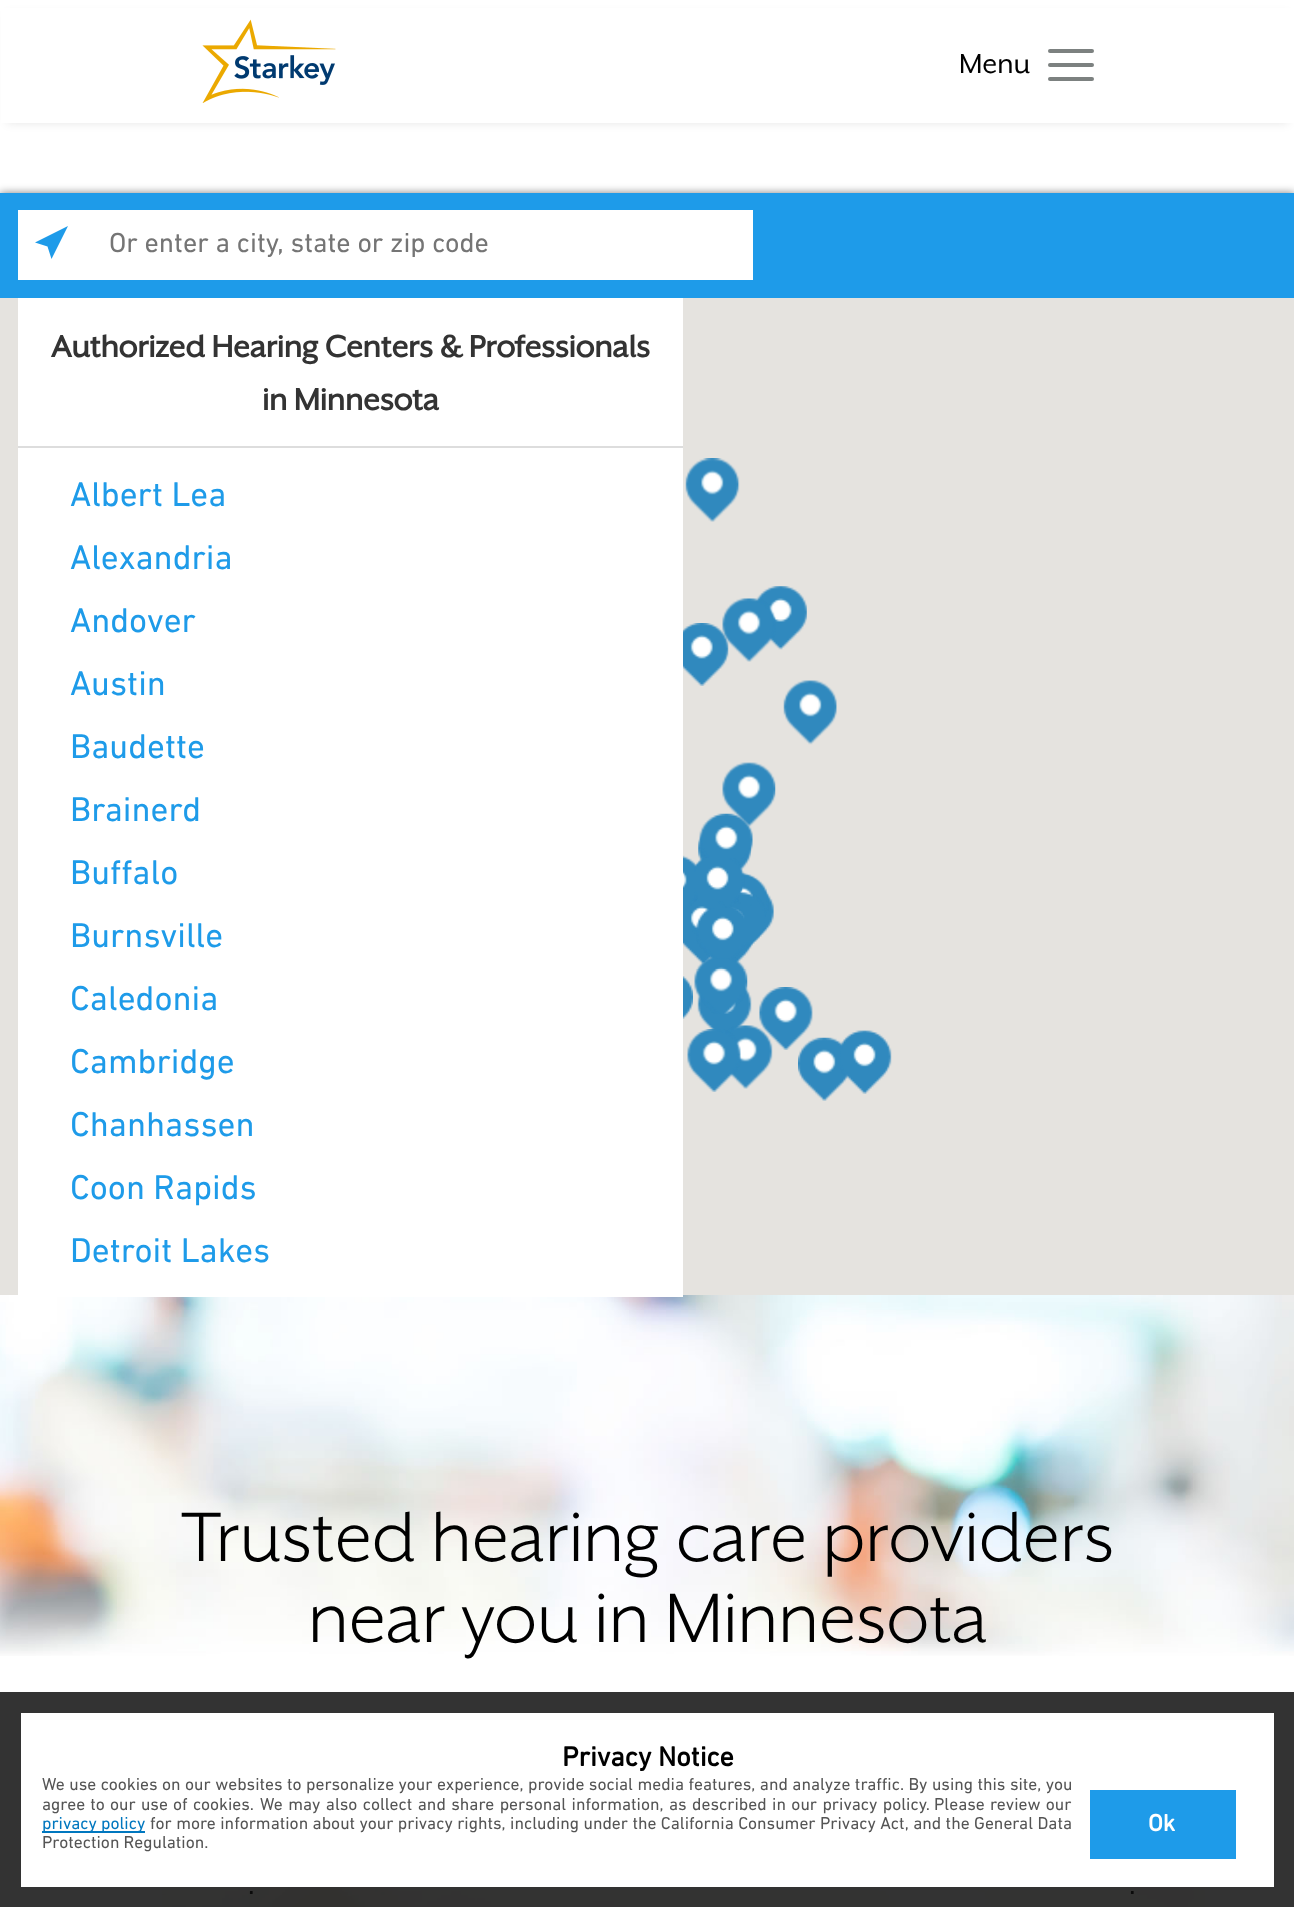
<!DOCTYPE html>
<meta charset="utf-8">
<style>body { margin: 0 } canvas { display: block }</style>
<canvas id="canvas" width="1294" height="1907"></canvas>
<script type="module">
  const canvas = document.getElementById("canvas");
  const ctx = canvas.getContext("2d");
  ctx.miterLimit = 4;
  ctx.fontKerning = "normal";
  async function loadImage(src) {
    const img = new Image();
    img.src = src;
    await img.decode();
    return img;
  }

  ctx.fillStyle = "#ffffff";
  ctx.fillRect(0, 0, 1294, 1907);
  ctx.fillStyle = "#333333";
  ctx.fillRect(0, 1692, 1294, 215);
  ctx.fillStyle = "rgba(0, 0, 0, 0.1)";
  ctx.filter = "blur(5px)";
  ctx.beginPath();
  ctx.rect(7, 14, 1281, 109);
  ctx.fill();
  ctx.filter = "none";
  ctx.fillStyle = "#ffffff";
  ctx.fillRect(1, 8, 1293, 115);
  ctx.drawImage(await loadImage("img1.png"), 202, 19, 134, 84);
  ctx.font = "31.5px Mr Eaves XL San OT";
  ctx.fillStyle = "#000000";
  ctx.fillText("Menu", 959, 73);
  ctx.fillStyle = "#7c8180";
  ctx.beginPath();
  ctx.roundRect(1048, 63, 46, 4, 2);
  ctx.fill();
  ctx.beginPath();
  ctx.roundRect(1048, 49, 46, 4, 2);
  ctx.fill();
  ctx.beginPath();
  ctx.roundRect(1048, 77, 46, 4, 2);
  ctx.fill();
  ctx.fillStyle = "rgba(0, 0, 0, 0.5)";
  ctx.filter = "blur(4.5px)";
  ctx.beginPath();
  ctx.rect(0, 193, 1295, 105);
  ctx.fill();
  ctx.filter = "none";
  ctx.fillStyle = "#1e9be9";
  ctx.fillRect(0, 193, 1294, 105);
  ctx.fillStyle = "#ffffff";
  ctx.fillRect(18, 210, 735, 70);
  ctx.fillStyle = "#1e9be9";
  ctx.beginPath();
  ctx.moveTo(68, 226);
  ctx.lineTo(35, 242.5);
  ctx.lineTo(47.5, 246.5);
  ctx.lineTo(51.5, 259);
  ctx.closePath();
  ctx.fill();
  ctx.font = "28px DIN Next";
  ctx.fillStyle = "#757575";
  ctx.fillText("Or enter a city, state or zip code", 109, 252);
  ctx.fillStyle = "#e5e3df";
  ctx.fillRect(0, 298, 1294, 997);
  ctx.drawImage(await loadImage("img2.png"), 685, 458, 55, 64);
  ctx.drawImage(await loadImage("img5.png"), 755, 586, 52, 64);
  ctx.drawImage(await loadImage("img4.png"), 722, 598, 54, 64);
  ctx.drawImage(await loadImage("img3.png"), 683, 623, 46, 63);
  ctx.drawImage(await loadImage("img6.png"), 783, 680, 54, 65);
  ctx.drawImage(await loadImage("img7.png"), 722, 762, 54, 65);
  ctx.drawImage(await loadImage("img9.png"), 698, 828, 53, 44);
  ctx.drawImage(await loadImage("img16.png"), 746, 888, 28, 61);
  ctx.drawImage(await loadImage("img13.png"), 741, 872, 25, 22);
  ctx.drawImage(await loadImage("img15.png"), 741, 876, 2, 2);
  ctx.drawImage(await loadImage("img14.png"), 738, 874, 31, 44);
  ctx.drawImage(await loadImage("img19.png"), 692, 895, 5, 5);
  ctx.drawImage(await loadImage("img17.png"), 690, 895, 9, 6);
  ctx.drawImage(await loadImage("img27.png"), 683, 938, 30, 27);
  ctx.drawImage(await loadImage("img28.png"), 709, 941, 44, 23);
  ctx.drawImage(await loadImage("img18.png"), 735, 892, 30, 59);
  ctx.drawImage(await loadImage("img20.png"), 733, 895, 6, 9);
  ctx.drawImage(await loadImage("img24.png"), 683, 930, 18, 12);
  ctx.drawImage(await loadImage("img21.png"), 700, 897, 41, 44);
  ctx.drawImage(await loadImage("img23.png"), 726, 904, 26, 42);
  ctx.drawImage(await loadImage("img11.png"), 692, 857, 50, 51);
  ctx.drawImage(await loadImage("img8.png"), 699, 813, 54, 54);
  ctx.drawImage(await loadImage("img22.png"), 683, 901, 44, 29);
  ctx.drawImage(await loadImage("img26.png"), 692, 930, 7, 7);
  ctx.drawImage(await loadImage("img31.png"), 697, 985, 55, 51);
  ctx.drawImage(await loadImage("img30.png"), 694, 957, 54, 57);
  ctx.drawImage(await loadImage("img25.png"), 696, 908, 49, 50);
  ctx.drawImage(await loadImage("img10.png"), 683, 855, 15, 55);
  ctx.drawImage(await loadImage("img12.png"), 694, 858, 51, 35);
  ctx.drawImage(await loadImage("img29.png"), 683, 976, 10, 43);
  ctx.drawImage(await loadImage("img32.png"), 759, 987, 54, 63);
  ctx.drawImage(await loadImage("img34.png"), 725, 1025, 48, 64);
  ctx.drawImage(await loadImage("img33.png"), 687, 1029, 54, 63);
  ctx.drawImage(await loadImage("img35.png"), 798, 1037, 52, 64);
  ctx.drawImage(await loadImage("img36.png"), 840, 1030, 52, 64);
  ctx.drawImage(await loadImage("img38.png"), 0, 1295, 1294, 361);
  ctx.fillStyle = "#ffffff";
  ctx.fillRect(18, 298, 665, 999);
  ctx.fillStyle = "#dddddd";
  ctx.fillRect(18, 446, 665, 2);
  ctx.font = "bold 35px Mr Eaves";
  ctx.fillStyle = "#333333";
  ctx.fillText("Authorized Hearing Centers & Professionals", 51, 357);
  ctx.fillText("in Minnesota", 262, 410);
  ctx.font = "35px DIN Next";
  ctx.fillStyle = "#1e9be9";
  ctx.fillText("Albert Lea", 70, 506);
  ctx.fillText("Alexandria", 70, 569);
  ctx.fillText("Andover", 70, 632);
  ctx.fillText("Austin", 70, 695);
  ctx.fillText("Baudette", 70, 758);
  ctx.fillText("Brainerd", 70, 821);
  ctx.fillText("Buffalo", 70, 884);
  ctx.fillText("Burnsville", 70, 947);
  ctx.fillText("Caledonia", 70, 1010);
  ctx.fillText("Cambridge", 70, 1073);
  ctx.fillText("Chanhassen", 70, 1136);
  ctx.fillText("Coon Rapids", 70, 1199);
  ctx.fillText("Detroit Lakes", 70, 1262);
  ctx.drawImage(await loadImage("img37.png"), 162, 1887, 1043, 20);
  ctx.font = "500 80.5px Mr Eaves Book";
  ctx.fillStyle = "#000000";
  ctx.fillText("Trusted hearing care providers", 181, 1561);
  ctx.fillText("near you in Minnesota", 308, 1642);
  ctx.font = "28px DIN Next";
  ctx.fillStyle = "#0a0a0a";
  ctx.fillText(".", 248, 1894);
  ctx.fillText(".", 1129, 1894);
  ctx.fillStyle = "#ffffff";
  ctx.fillRect(21, 1713, 1253, 174);
  ctx.font = "bold 28px DIN Next";
  ctx.fillStyle = "#000000";
  ctx.fillText("Privacy Notice", 562, 1766);
  ctx.wordSpacing = "0.25px";
  ctx.font = "17.5px DIN Next";
  ctx.fillStyle = "#555555";
  ctx.fillText("We use cookies on our websites to personalize your experience, provide social media features, and analyze traffic. By using this site, you", 42, 1790);
  ctx.wordSpacing = "1px";
  ctx.fillText("agree to our use of cookies.", 42, 1810);
  ctx.wordSpacing = "1.25px";
  ctx.fillText("We may also collect and share personal information, as described in our privacy policy.", 260, 1810);
  ctx.wordSpacing = "1px";
  ctx.fillText("Please review our", 934, 1810);
  ctx.fillStyle = "#0077bf";
  ctx.fillRect(42, 1831, 103, 2);
  ctx.wordSpacing = "0px";
  ctx.fillText("privacy policy", 42, 1829);
  ctx.wordSpacing = "0.25px";
  ctx.fillStyle = "#555555";
  ctx.fillText("for more information about your privacy rights, including under the California Consumer Privacy Act, and the General Data", 150, 1829);
  ctx.wordSpacing = "0px";
  ctx.fillText("Protection Regulation.", 42, 1848);
  ctx.fillStyle = "#1e9be9";
  ctx.fillRect(1090, 1790, 146, 69);
  ctx.font = "bold 24px DIN Next";
  ctx.fillStyle = "#ffffff";
  ctx.fillText("Ok", 1148, 1831);
</script>
